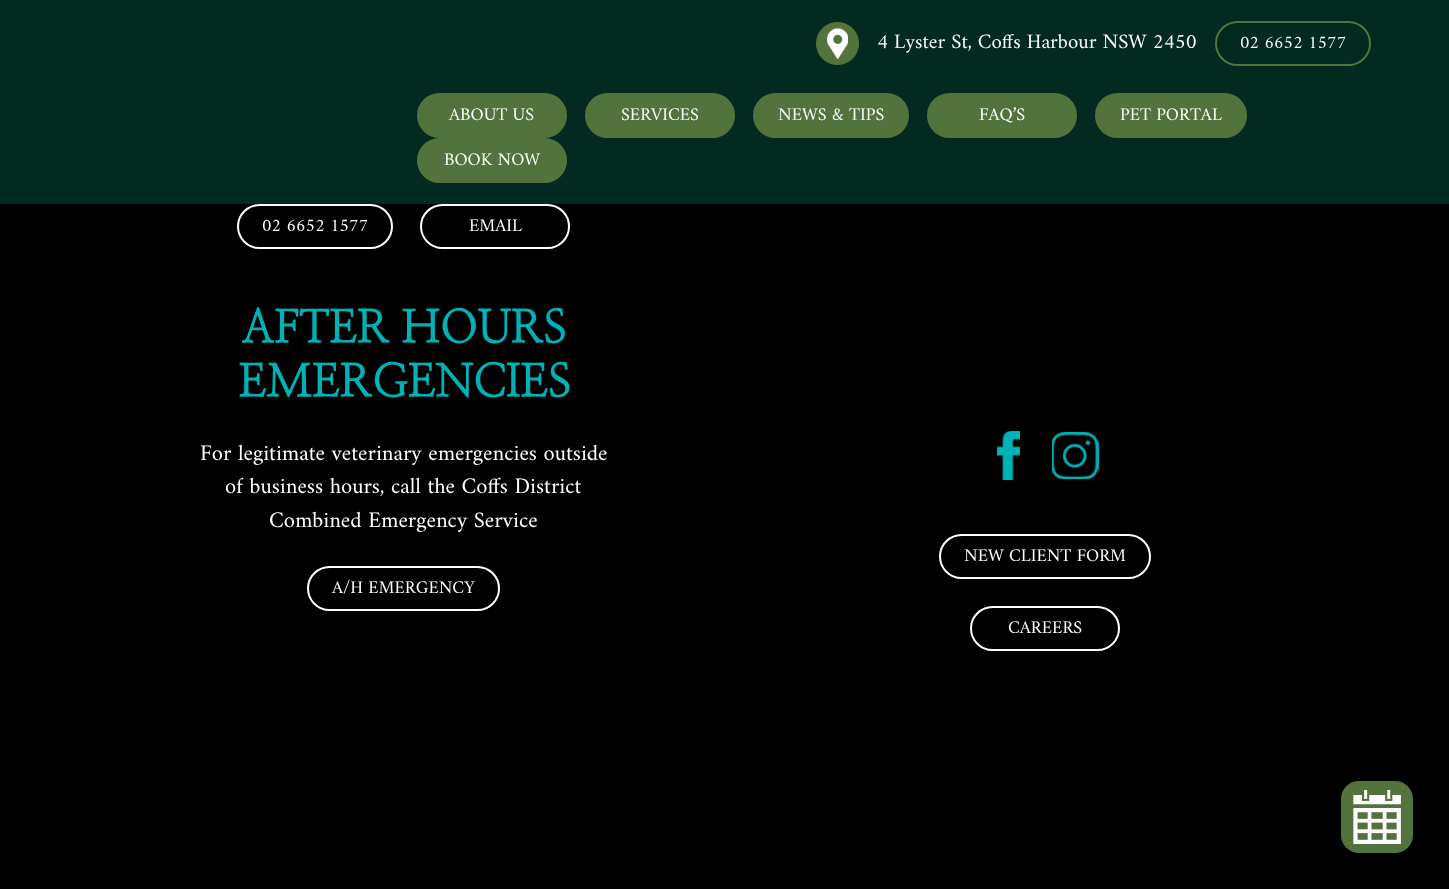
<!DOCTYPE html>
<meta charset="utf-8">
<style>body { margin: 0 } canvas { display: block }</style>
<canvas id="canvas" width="1449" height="889"></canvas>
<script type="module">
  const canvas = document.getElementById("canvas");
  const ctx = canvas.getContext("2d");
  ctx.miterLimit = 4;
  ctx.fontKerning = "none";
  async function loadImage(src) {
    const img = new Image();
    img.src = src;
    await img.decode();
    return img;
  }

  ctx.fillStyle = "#000000";
  ctx.fillRect(0, 0, 1449, 889);
  ctx.fillStyle = "#022a21";
  ctx.fillRect(0, 0, 1449, 204);
  ctx.drawImage(await loadImage("img1.png"), 816, 22, 43, 43);
  ctx.font = "20.75px Amiri";
  ctx.fillStyle = "#ffffff";
  ctx.fillText("4 Lyster St, Coffs Harbour NSW 2450", 877, 48);
  ctx.beginPath();
  ctx.roundRect(1216, 22, 154, 43, 21.5);
  ctx.strokeStyle = "#52743c";
  ctx.lineWidth = 2;
  ctx.stroke();
  ctx.font = "18px Amiri";
  ctx.fillText("02 6652 1577", 1240, 48);
  ctx.fillStyle = "#52743c";
  ctx.beginPath();
  ctx.roundRect(418, 94, 148, 43, 21.5);
  ctx.fill();
  ctx.stroke();
  ctx.fillStyle = "#ffffff";
  ctx.fillText("ABOUT US", 449, 120);
  ctx.fillStyle = "#52743c";
  ctx.beginPath();
  ctx.roundRect(586, 94, 148, 43, 21.5);
  ctx.fill();
  ctx.stroke();
  ctx.fillStyle = "#ffffff";
  ctx.fillText("SERVICES", 621, 120);
  ctx.fillStyle = "#52743c";
  ctx.beginPath();
  ctx.roundRect(754, 94, 154, 43, 21.5);
  ctx.fill();
  ctx.stroke();
  ctx.fillStyle = "#ffffff";
  ctx.fillText("NEWS & TIPS", 778, 120);
  ctx.fillStyle = "#52743c";
  ctx.beginPath();
  ctx.roundRect(928, 94, 148, 43, 21.5);
  ctx.fill();
  ctx.stroke();
  ctx.fillStyle = "#ffffff";
  ctx.fillText("FAQ’S", 979, 120);
  ctx.fillStyle = "#52743c";
  ctx.beginPath();
  ctx.roundRect(1096, 94, 150, 43, 21.5);
  ctx.fill();
  ctx.stroke();
  ctx.fillStyle = "#ffffff";
  ctx.fillText("PET PORTAL", 1120, 120);
  ctx.fillStyle = "#52743c";
  ctx.beginPath();
  ctx.roundRect(418, 139, 148, 43, 21.5);
  ctx.fill();
  ctx.stroke();
  ctx.fillStyle = "#ffffff";
  ctx.fillText("BOOK NOW", 444, 165);
  ctx.beginPath();
  ctx.roundRect(238, 205, 154, 43, 21.5);
  ctx.strokeStyle = "#ffffff";
  ctx.stroke();
  ctx.fillText("02 6652 1577", 262, 231);
  ctx.beginPath();
  ctx.roundRect(421, 205, 148, 43, 21.5);
  ctx.stroke();
  ctx.fillText("EMAIL", 469, 231);
  ctx.font = "bold 45px NanumMyeongjo";
  ctx.fillStyle = "#00b1b6";
  ctx.fillText("AFTER HOURS", 241, 343);
  ctx.fillText("EMERGENCIES", 238, 397);
  ctx.font = "22.5px Amiri";
  ctx.fillStyle = "#ffffff";
  ctx.fillText("For legitimate veterinary emergencies outside", 200, 460);
  ctx.fillText("of business hours, call the Coffs District", 225, 493);
  ctx.fillText("Combined Emergency Service", 269, 527);
  ctx.beginPath();
  ctx.roundRect(308, 567, 191, 43, 21.5);
  ctx.stroke();
  ctx.font = "18px Amiri";
  ctx.fillText("A/H EMERGENCY", 332, 593);
  ctx.drawImage(await loadImage("img2.png"), 997, 431, 23, 49);
  ctx.drawImage(await loadImage("img3.png"), 1052, 432, 47, 47);
  ctx.beginPath();
  ctx.roundRect(940, 535, 210, 43, 21.5);
  ctx.stroke();
  ctx.fillText("NEW CLIENT FORM", 964, 561);
  ctx.beginPath();
  ctx.roundRect(971, 607, 148, 43, 21.5);
  ctx.stroke();
  ctx.fillText("CAREERS", 1008, 633);
  ctx.fillStyle = "#52743c";
  ctx.beginPath();
  ctx.roundRect(1341, 781, 72, 72, 18);
  ctx.fill();
  ctx.drawImage(await loadImage("img4.png"), 1353, 790, 48, 54);
</script>
